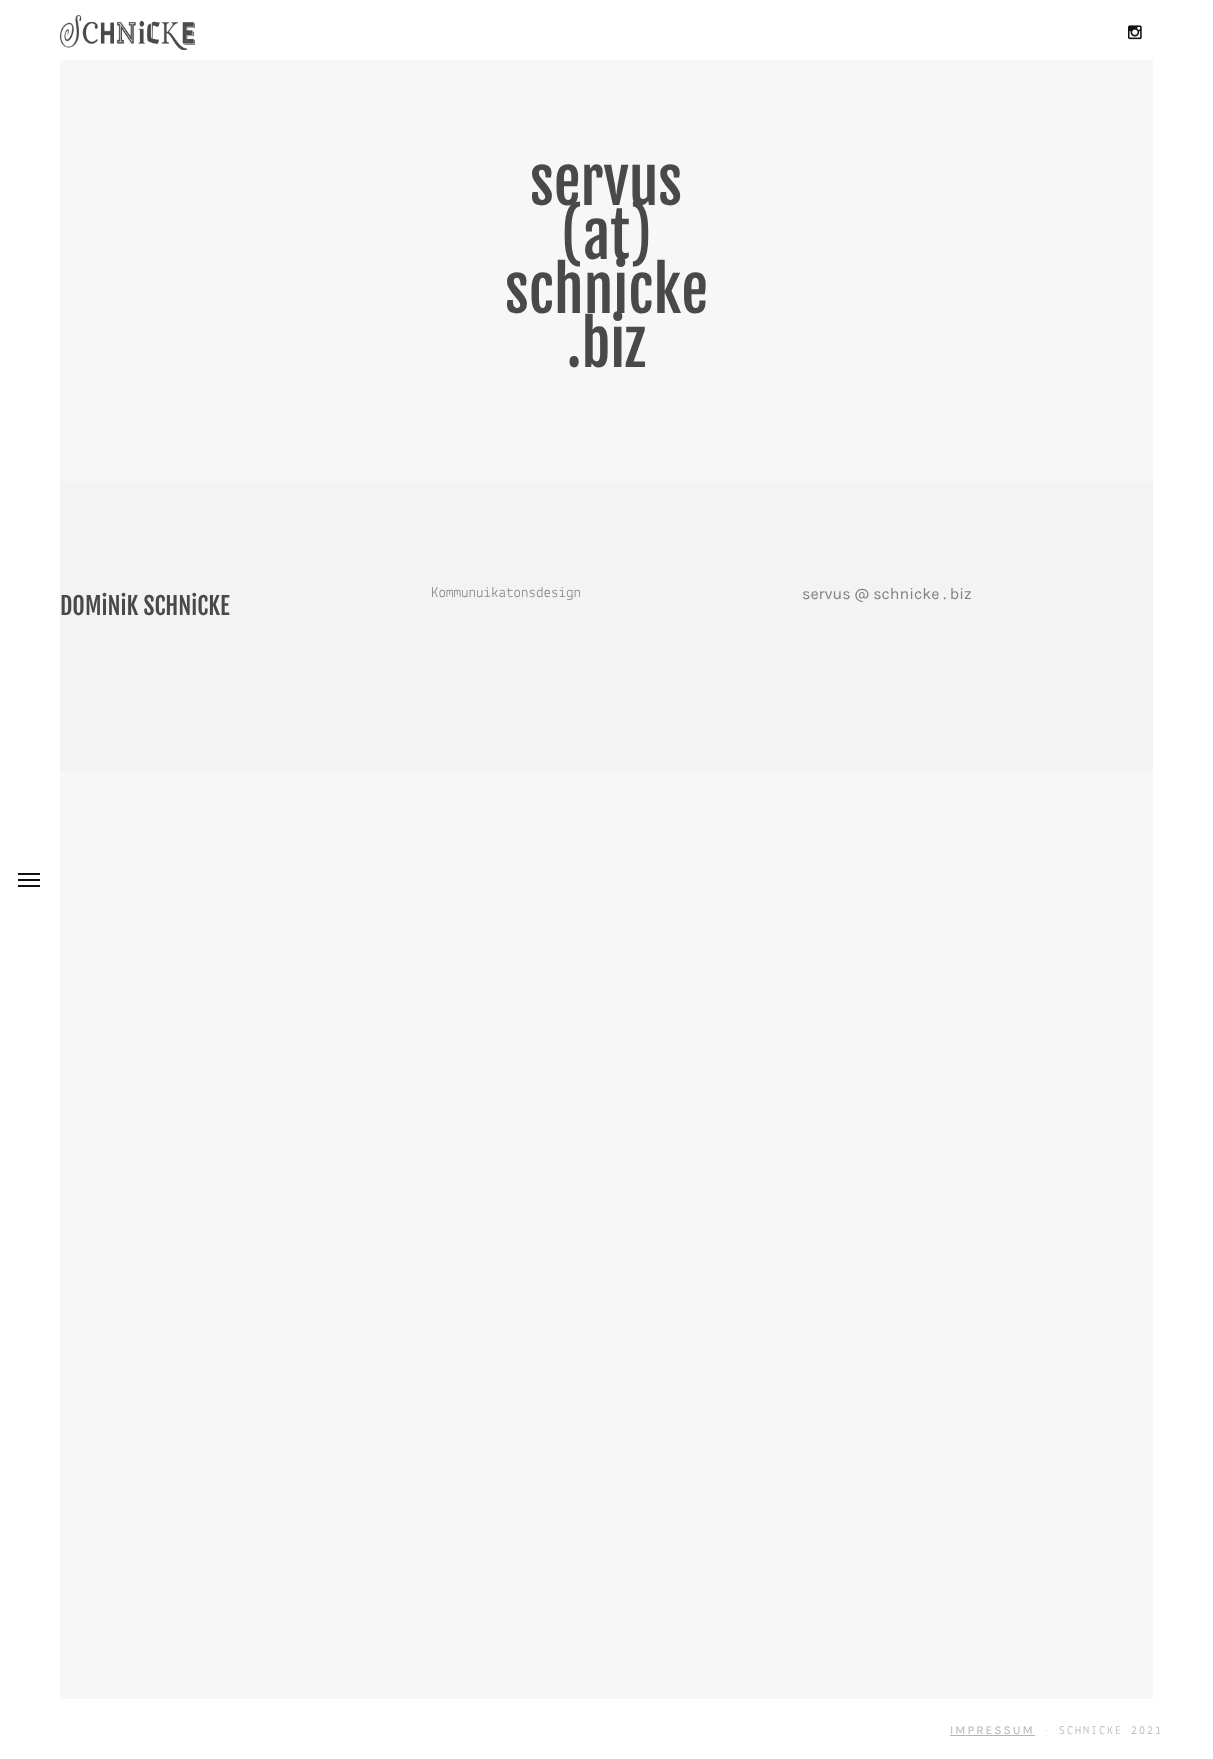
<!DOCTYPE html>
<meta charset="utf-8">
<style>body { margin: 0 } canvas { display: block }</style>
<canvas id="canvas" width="1213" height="1759"></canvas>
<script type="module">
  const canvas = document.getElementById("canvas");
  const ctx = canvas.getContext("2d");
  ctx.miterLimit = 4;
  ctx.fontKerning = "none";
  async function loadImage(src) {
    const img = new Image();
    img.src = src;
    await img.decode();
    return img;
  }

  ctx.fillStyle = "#f7f7f7";
  ctx.fillRect(0, 0, 1213, 1759);
  ctx.fillStyle = "#ffffff";
  ctx.fillRect(0, 0, 1213, 60);
  ctx.drawImage(await loadImage("img1.png"), 60, 15, 135, 35);
  ctx.drawImage(await loadImage("img2.png"), 1128, 25, 14, 15);
  ctx.fillRect(0, 60, 60, 1639);
  ctx.fillStyle = "#111111";
  ctx.fillRect(18, 879, 22, 2);
  ctx.fillRect(18, 873, 22, 2);
  ctx.fillRect(18, 885, 22, 2);
  ctx.font = "60px Fjalla One";
  ctx.fillStyle = "#494948";
  ctx.fillText("servus", 530, 205);
  ctx.fillText("(at)", 561, 259);
  ctx.fillText("schnicke", 505, 313);
  ctx.fillText(".biz", 567, 367);
  ctx.fillStyle = "#ffffff";
  ctx.fillRect(1153, 60, 60, 1639);
  ctx.fillStyle = "#f3f3f3";
  ctx.fillRect(60, 481, 1093, 290);
  ctx.font = "24px Fjalla One";
  ctx.fillStyle = "#494948";
  ctx.fillText("DOMiNiK SCHNiCKE", 60, 615);
  ctx.font = "15px Lekton";
  ctx.fillStyle = "#818181";
  ctx.fillText("Kommunuikatonsdesign", 431, 597);
  ctx.font = "16px Karla";
  ctx.fillText("servus @ schnicke . biz", 802, 599);
  ctx.fillStyle = "#ffffff";
  ctx.fillRect(0, 1699, 1213, 60);
  ctx.letterSpacing = "2px";
  ctx.font = "12px Karla";
  ctx.fillStyle = "#b3b3b3";
  ctx.fillText("IMPRESSUM", 950, 1734);
  ctx.fillRect(950, 1735, 85, 1);
  ctx.font = "12px Lekton";
  ctx.fillText("• SCHNICKE 2021", 1043, 1734);
</script>
